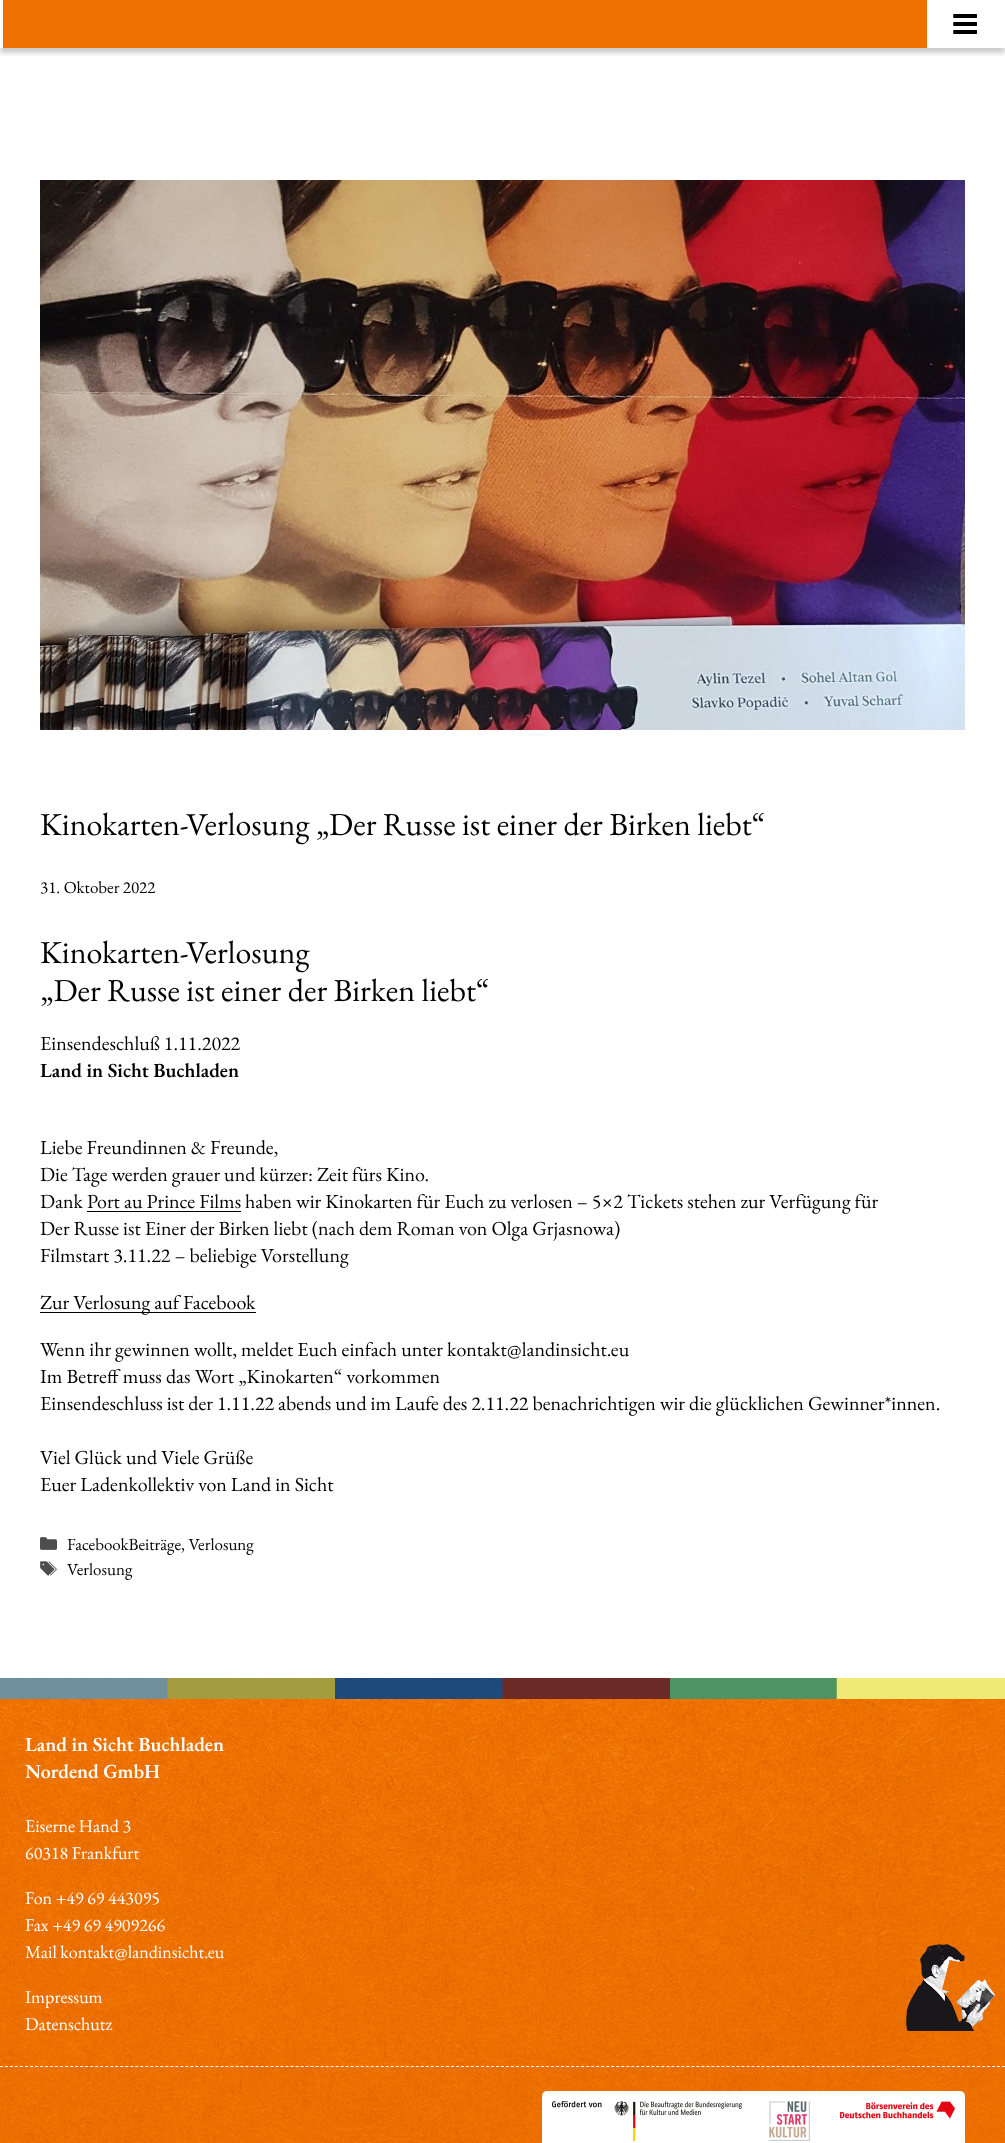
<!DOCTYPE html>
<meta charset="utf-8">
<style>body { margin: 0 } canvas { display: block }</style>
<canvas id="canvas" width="1005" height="2143"></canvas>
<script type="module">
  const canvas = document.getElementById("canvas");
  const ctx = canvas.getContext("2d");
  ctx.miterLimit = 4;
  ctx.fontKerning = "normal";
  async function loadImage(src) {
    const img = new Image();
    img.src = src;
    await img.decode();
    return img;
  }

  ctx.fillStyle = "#ffffff";
  ctx.fillRect(0, 0, 1005, 2143);
  ctx.save();
  ctx.beginPath();
  ctx.rect(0, 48, 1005, 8);
  ctx.clip();
  ctx.fillStyle = "rgba(0, 0, 0, 0.2)";
  ctx.filter = "blur(2.5px)";
  ctx.beginPath();
  ctx.rect(0, 5, 1005, 48);
  ctx.fill();
  ctx.filter = "none";
  ctx.restore();
  ctx.fillStyle = "#ed7100";
  ctx.fillRect(3, 0, 924, 48);
  ctx.drawImage(await loadImage("img1.png"), 953, 14, 24, 20);
  ctx.drawImage(await loadImage("img2.png"), 40, 180, 925, 550);
  ctx.font = "32px EB Garamond";
  ctx.fillStyle = "#000000";
  ctx.fillText("Kinokarten-Verlosung „Der Russe ist einer der Birken liebt“", 40, 835);
  ctx.font = "17px EB Garamond";
  ctx.fillText("31. Oktober 2022", 40, 893);
  ctx.font = "32px EB Garamond";
  ctx.fillText("Kinokarten-Verlosung", 40, 963);
  ctx.fillText("„Der Russe ist einer der Birken liebt“", 40, 1001);
  ctx.font = "20px EB Garamond";
  ctx.fillText("Einsendeschluß 1.11.2022", 40, 1050);
  ctx.font = "600 20px EB Garamond";
  ctx.fillText("Land in Sicht Buchladen", 40, 1077);
  ctx.font = "20px EB Garamond";
  ctx.fillText("Liebe Freundinnen & Freunde,", 40, 1154);
  ctx.fillText("Die Tage werden grauer und kürzer: Zeit fürs Kino.", 40, 1181);
  ctx.fillText("Dank Port au Prince Films", 40, 1208);
  ctx.fillText("haben wir Kinokarten für Euch zu verlosen – 5×2 Tickets stehen zur Verfügung für", 245, 1208);
  ctx.fillRect(87, 1211, 154, 1);
  ctx.fillText("Der Russe ist Einer der Birken liebt (nach dem Roman von Olga Grjasnowa)", 40, 1235);
  ctx.fillText("Filmstart 3.11.22 – beliebige Vorstellung", 40, 1262);
  ctx.fillText("Zur Verlosung auf Facebook", 40, 1309);
  ctx.fillRect(40, 1312, 216, 1);
  ctx.fillText("Wenn ihr gewinnen wollt, meldet Euch einfach unter kontakt@landinsicht.eu", 40, 1356);
  ctx.wordSpacing = "0.25px";
  ctx.fillText("Im Betreff muss das Wort „Kinokarten“ vorkommen", 40, 1383);
  ctx.wordSpacing = "0px";
  ctx.fillText("Einsendeschluss ist der 1.11.22 abends und im Laufe des 2.11.22 benachrichtigen wir die glücklichen Gewinner*innen.", 40, 1410);
  ctx.fillText("Viel Glück und Viele Grüße", 40, 1464);
  ctx.fillText("Euer Ladenkollektiv von Land in Sicht", 40, 1491);
  ctx.drawImage(await loadImage("img3.png"), 40, 1537, 17, 13);
  ctx.font = "17px EB Garamond";
  ctx.fillText("FacebookBeiträge, Verlosung", 67, 1550);
  ctx.drawImage(await loadImage("img4.png"), 40, 1561, 17, 15);
  ctx.fillText("Verlosung", 67, 1575);
  ctx.drawImage(await loadImage("img5.png"), 0, 1699, 1005, 444);
  ctx.drawImage(await loadImage("img6.png"), 0, 1678, 1005, 21);
  ctx.font = "600 20px EB Garamond";
  ctx.fillStyle = "#ffffff";
  ctx.fillText("Land in Sicht Buchladen", 25, 1751);
  ctx.fillText("Nordend GmbH", 25, 1778);
  ctx.font = "18px EB Garamond";
  ctx.fillText("Eiserne Hand 3", 25, 1832);
  ctx.fillText("60318 Frankfurt", 25, 1859);
  ctx.fillText("Fon +49 69 443095", 25, 1904);
  ctx.fillText("Fax +49 69 4909266", 25, 1931);
  ctx.fillText("Mail kontakt@landinsicht.eu", 25, 1958);
  ctx.fillText("Impressum", 25, 2003);
  ctx.fillText("Datenschutz", 25, 2030);
  ctx.drawImage(await loadImage("img7.png"), 906, 1944, 89, 87);
  ctx.beginPath();
  ctx.moveTo(0, 2066.5);
  ctx.lineTo(1005, 2066.5);
  ctx.strokeStyle = "#ffffff";
  ctx.setLineDash([3, 2.01]);
  ctx.stroke();
  ctx.beginPath();
  ctx.roundRect(542, 2091, 423, 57, 5);
  ctx.fill();
  ctx.drawImage(await loadImage("img8.png"), 552, 2101, 403, 40);
</script>
